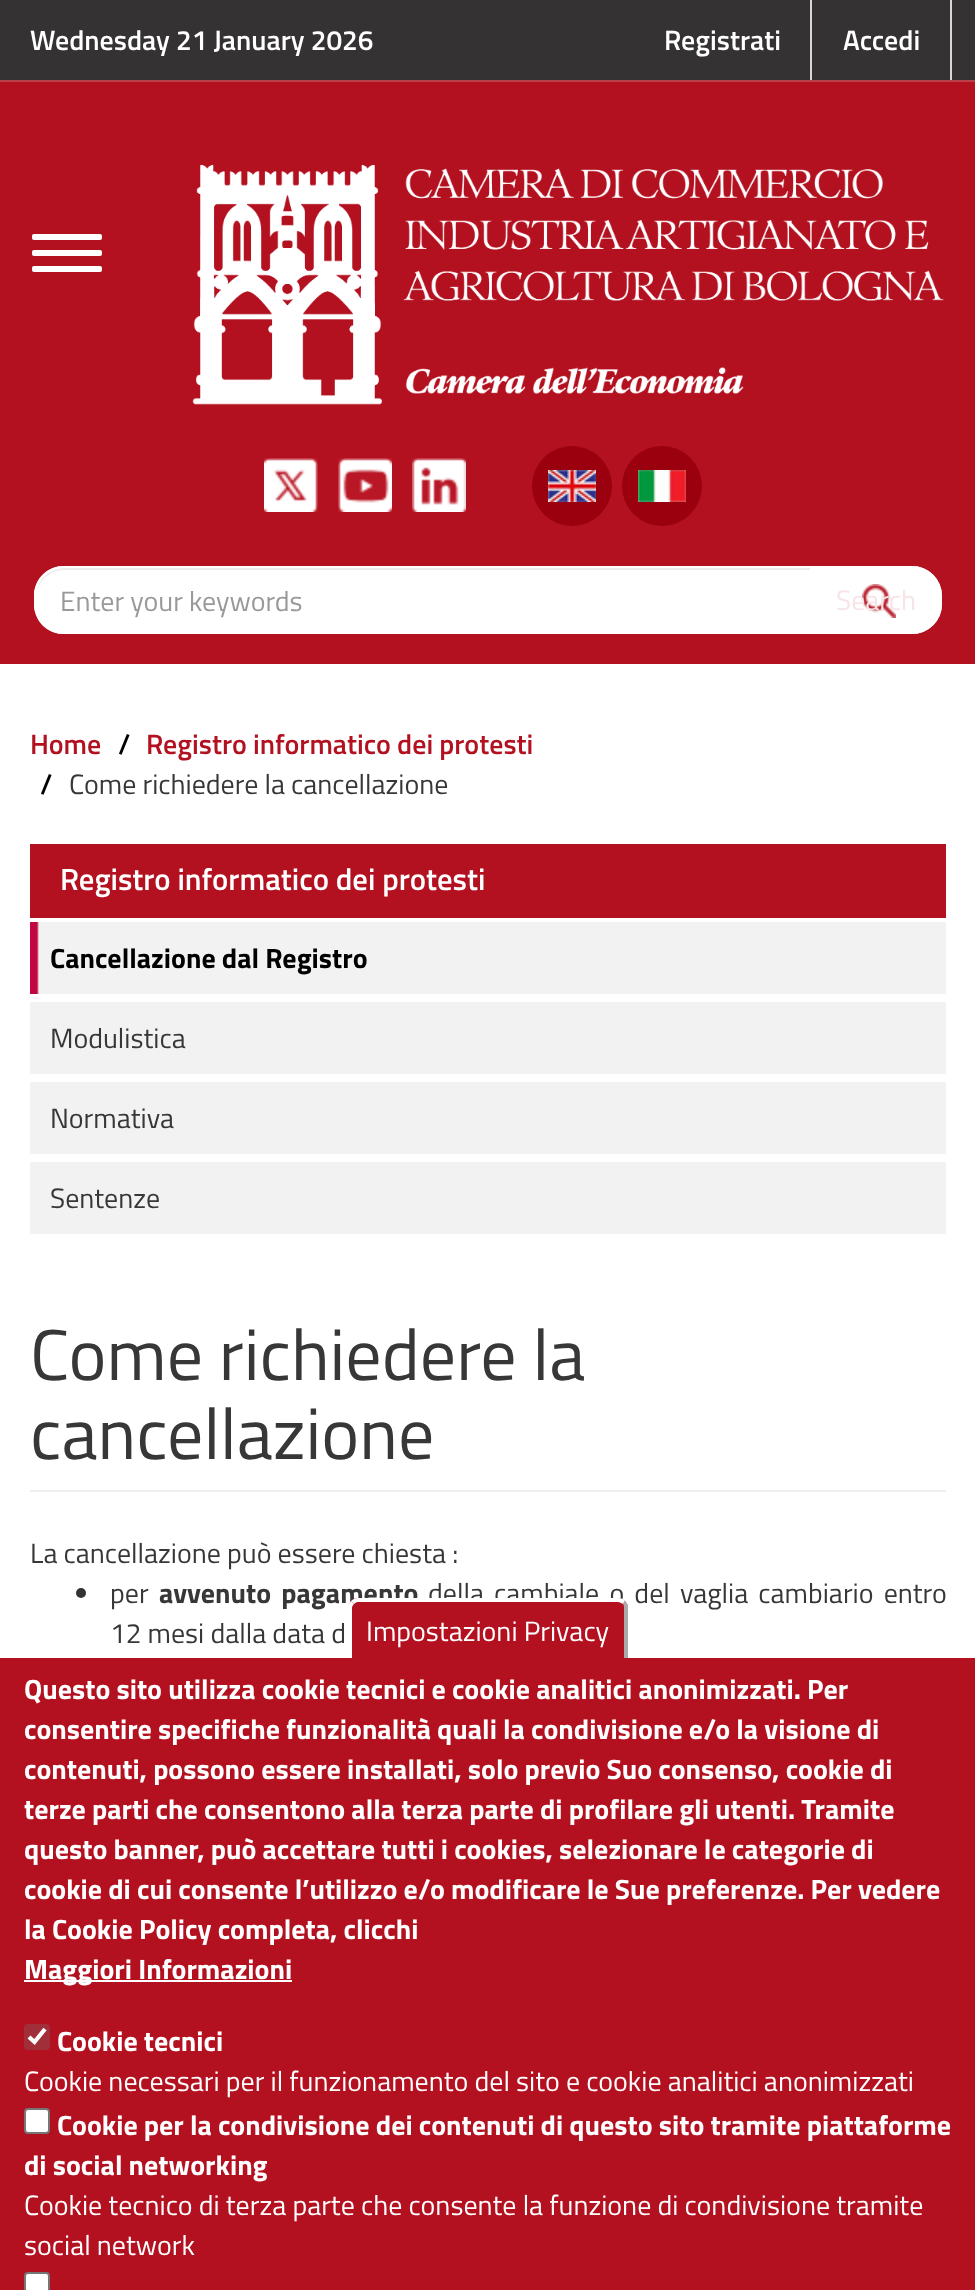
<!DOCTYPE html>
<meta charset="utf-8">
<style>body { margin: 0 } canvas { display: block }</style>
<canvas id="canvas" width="975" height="2290"></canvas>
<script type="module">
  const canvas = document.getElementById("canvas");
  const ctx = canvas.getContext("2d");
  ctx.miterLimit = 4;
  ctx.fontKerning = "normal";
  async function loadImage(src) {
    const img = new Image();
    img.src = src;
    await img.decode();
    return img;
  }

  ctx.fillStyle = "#ffffff";
  ctx.fillRect(0, 0, 975, 2290);
  ctx.fillStyle = "#343232";
  ctx.fillRect(0, 0, 975, 80);
  ctx.font = "600 28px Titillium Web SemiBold";
  ctx.fillStyle = "#ffffff";
  ctx.fillText("Wednesday 21 January 2026", 30, 50);
  ctx.fillStyle = "#d8d8d8";
  ctx.fillRect(810, 0, 2, 80);
  ctx.fillStyle = "#ffffff";
  ctx.fillText("Registrati", 664, 50);
  ctx.fillStyle = "#d8d8d8";
  ctx.fillRect(950, 0, 2, 80);
  ctx.fillStyle = "#ffffff";
  ctx.fillText("Accedi", 843, 50);
  ctx.fillStyle = "#b31120";
  ctx.fillRect(0, 82, 975, 582);
  ctx.fillStyle = "#b93f4a";
  ctx.fillRect(0, 80, 975, 2);
  ctx.fillStyle = "#ffffff";
  ctx.beginPath();
  ctx.roundRect(32, 234, 70, 6, 2);
  ctx.fill();
  ctx.beginPath();
  ctx.roundRect(32, 250, 70, 6, 2);
  ctx.fill();
  ctx.beginPath();
  ctx.roundRect(32, 266, 70, 6, 2);
  ctx.fill();
  ctx.drawImage(await loadImage("img1.png"), 192, 164, 752, 241);
  ctx.drawImage(await loadImage("img2.png"), 264, 458, 54, 54);
  ctx.drawImage(await loadImage("img3.png"), 338, 458, 54, 54);
  ctx.drawImage(await loadImage("img4.png"), 412, 458, 54, 54);
  ctx.fillStyle = "#9a000e";
  ctx.beginPath();
  ctx.arc(572, 486, 40, 0, Math.PI * 2);
  ctx.fill();
  ctx.drawImage(await loadImage("img5.png"), 548, 470, 48, 32);
  ctx.beginPath();
  ctx.arc(662, 486, 40, 0, Math.PI * 2);
  ctx.fill();
  ctx.drawImage(await loadImage("img6.png"), 638, 470, 48, 32);
  ctx.fillStyle = "#ffffff";
  ctx.beginPath();
  ctx.roundRect(34, 566, 780, 68, [30, 0, 0, 30]);
  ctx.fill();
  ctx.fillStyle = "#ececec";
  ctx.beginPath();
  ctx.moveTo(64, 570);
  ctx.lineTo(814, 570);
  ctx.lineTo(814, 568);
  ctx.lineTo(64, 568);
  ctx.bezierCurveTo(49, 568, 36, 581, 36, 596);
  ctx.lineTo(36, 598);
  ctx.bezierCurveTo(36, 583, 49, 570, 64, 570);
  ctx.closePath();
  ctx.fill();
  ctx.fillStyle = "#ffffff";
  ctx.beginPath();
  ctx.moveTo(64, 566);
  ctx.lineTo(814, 566);
  ctx.lineTo(814, 634);
  ctx.lineTo(64, 634);
  ctx.bezierCurveTo(47, 634, 34, 621, 34, 604);
  ctx.lineTo(34, 596);
  ctx.bezierCurveTo(34, 579, 47, 566, 64, 566);
  ctx.closePath();
  ctx.moveTo(64, 568);
  ctx.lineTo(814, 568);
  ctx.lineTo(814, 632);
  ctx.lineTo(64, 632);
  ctx.bezierCurveTo(49, 632, 36, 619, 36, 604);
  ctx.lineTo(36, 596);
  ctx.bezierCurveTo(36, 581, 49, 568, 64, 568);
  ctx.closePath();
  ctx.fill("evenodd");
  ctx.font = "28px Titillium Web";
  ctx.fillStyle = "#999999";
  ctx.fillText("Enter your keywords", 60, 611);
  ctx.fillStyle = "#ffffff";
  ctx.beginPath();
  ctx.roundRect(810, 566, 132, 68, [0, 30, 30, 0]);
  ctx.fill();
  ctx.drawImage(await loadImage("img7.png"), 862, 584, 34, 34);
  ctx.beginPath();
  ctx.roundRect(811, 567, 130, 66, [0, 29, 29, 0]);
  ctx.strokeStyle = "#ffffff";
  ctx.lineWidth = 2;
  ctx.stroke();
  ctx.fillStyle = "#f6e4e6";
  ctx.fillText("Search", 836, 610);
  ctx.font = "600 28px Titillium Web SemiBold";
  ctx.fillStyle = "#b31120";
  ctx.fillText("Home", 30, 754);
  ctx.fillStyle = "#000000";
  ctx.fillText("/", 118, 754);
  ctx.fillStyle = "#b31120";
  ctx.fillText("Registro informatico dei protesti", 146, 754);
  ctx.fillStyle = "#000000";
  ctx.fillText("/", 40, 794);
  ctx.font = "28px Titillium Web";
  ctx.fillStyle = "#373737";
  ctx.fillText("Come richiedere la cancellazione", 69, 794);
  ctx.fillStyle = "#b31120";
  ctx.fillRect(30, 844, 916, 74);
  ctx.font = "600 30.75px Titillium Web SemiBold";
  ctx.fillStyle = "#ffffff";
  ctx.fillText("Registro informatico dei protesti", 60, 890);
  ctx.fillStyle = "#f2f2f2";
  ctx.fillRect(30, 922, 916, 312);
  ctx.drawImage(await loadImage("img8.png"), 30, 922, 9, 72);
  ctx.fillStyle = "#ffffff";
  ctx.fillRect(30, 994, 916, 8);
  ctx.font = "bold 28px Titillium Web";
  ctx.fillStyle = "#000000";
  ctx.fillText("Cancellazione dal Registro", 50, 968);
  ctx.fillStyle = "#ffffff";
  ctx.fillRect(30, 1074, 916, 8);
  ctx.font = "28px Titillium Web";
  ctx.fillStyle = "#373737";
  ctx.fillText("Modulistica", 50, 1048);
  ctx.fillStyle = "#ffffff";
  ctx.fillRect(30, 1154, 916, 8);
  ctx.fillStyle = "#373737";
  ctx.fillText("Normativa", 50, 1128);
  ctx.fillText("Sentenze", 50, 1208);
  ctx.fillStyle = "#eeeeee";
  ctx.fillRect(30, 1490, 916, 2);
  ctx.font = "72px Titillium Web";
  ctx.fillStyle = "#373737";
  ctx.fillText("Come richiedere la", 30, 1380);
  ctx.fillText("cancellazione", 30, 1459);
  ctx.font = "28px Titillium Web";
  ctx.fillText("La cancellazione può essere chiesta :", 30, 1563);
  ctx.fillStyle = "#333333";
  ctx.beginPath();
  ctx.arc(81, 1593, 5, 0, Math.PI * 2);
  ctx.fill();
  ctx.fillStyle = "#373737";
  ctx.fillText("per", 110, 1603);
  ctx.wordSpacing = "4px";
  ctx.font = "bold 28px Titillium Web";
  ctx.fillText("avvenuto pagamento", 159, 1603);
  ctx.font = "28px Titillium Web";
  ctx.fillText("della cambiale o del vaglia cambiario entro", 428, 1603);
  ctx.wordSpacing = "0px";
  ctx.fillText("12 mesi dalla data d", 110, 1643);
  ctx.fillStyle = "#b31120";
  ctx.fillRect(0, 1658, 975, 632);
  ctx.beginPath();
  ctx.roundRect(348, 1598, 280, 60, [10, 10, 0, 0]);
  ctx.fill();
  ctx.fillStyle = "#ffffff";
  ctx.beginPath();
  ctx.moveTo(358, 1598);
  ctx.bezierCurveTo(356, 1598, 353, 1599, 351, 1601);
  ctx.lineTo(354, 1604);
  ctx.lineTo(357, 1602);
  ctx.lineTo(618, 1602);
  ctx.bezierCurveTo(620, 1602, 621, 1603, 623, 1604);
  ctx.lineTo(625, 1601);
  ctx.bezierCurveTo(624, 1599, 621, 1598, 618, 1598);
  ctx.closePath();
  ctx.fill();
  ctx.fillStyle = "#aaaaaa";
  ctx.beginPath();
  ctx.moveTo(624, 1658);
  ctx.lineTo(628, 1658);
  ctx.lineTo(628, 1608);
  ctx.bezierCurveTo(628, 1605, 627, 1603, 625, 1601);
  ctx.lineTo(623, 1604);
  ctx.bezierCurveTo(624, 1605, 624, 1607, 624, 1608);
  ctx.closePath();
  ctx.fill();
  ctx.fillStyle = "#ffffff";
  ctx.beginPath();
  ctx.moveTo(348, 1658);
  ctx.lineTo(348, 1605);
  ctx.lineTo(351, 1601);
  ctx.lineTo(354, 1604);
  ctx.bezierCurveTo(353, 1605, 352, 1606, 352, 1608);
  ctx.lineTo(352, 1658);
  ctx.closePath();
  ctx.fill();
  ctx.fillText("Impostazioni Privacy", 366, 1641);
  ctx.font = "bold 28px Titillium Web";
  ctx.fillText("Questo sito utilizza cookie tecnici e cookie analitici anonimizzati. Per", 24, 1699);
  ctx.fillText("consentire specifiche funzionalità quali la condivisione e/o la visione di", 24, 1739);
  ctx.fillText("contenuti, possono essere installati, solo previo Suo consenso, cookie di", 24, 1779);
  ctx.fillText("terze parti che consentono alla terza parte di profilare gli utenti. Tramite", 24, 1819);
  ctx.fillText("questo banner, può accettare tutti i cookies, selezionare le categorie di", 24, 1859);
  ctx.fillText("cookie di cui consente l’utilizzo e/o modificare le Sue preferenze. Per vedere", 24, 1899);
  ctx.fillText("la Cookie Policy completa, clicchi", 24, 1939);
  ctx.fillRect(24, 1980, 268, 2);
  ctx.fillText("Maggiori Informazioni", 24, 1979);
  ctx.fillStyle = "#a12f3a";
  ctx.beginPath();
  ctx.roundRect(24, 2024, 26, 26, 4);
  ctx.fill();
  ctx.beginPath();
  ctx.moveTo(29, 2037);
  ctx.lineTo(34.5, 2042);
  ctx.lineTo(45, 2029);
  ctx.lineWidth = 4.2;
  ctx.stroke();
  ctx.fillStyle = "#ffffff";
  ctx.fillText("Cookie tecnici", 57, 2051);
  ctx.font = "28px Titillium Web";
  ctx.fillText("Cookie necessari per il funzionamento del sito e cookie analitici anonimizzati", 24, 2091);
  ctx.beginPath();
  ctx.roundRect(25, 2109, 24, 24, 3);
  ctx.fill();
  ctx.strokeStyle = "#767676";
  ctx.lineWidth = 2;
  ctx.stroke();
  ctx.font = "bold 28px Titillium Web";
  ctx.fillText("Cookie per la condivisione dei contenuti di questo sito tramite piattaforme", 57, 2135);
  ctx.fillText("di social networking", 24, 2175);
  ctx.font = "28px Titillium Web";
  ctx.fillText("Cookie tecnico di terza parte che consente la funzione di condivisione tramite", 24, 2215);
  ctx.fillText("social network", 24, 2255);
  ctx.beginPath();
  ctx.roundRect(25, 2273, 24, 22, 3);
  ctx.fill();
  ctx.stroke();
</script>
